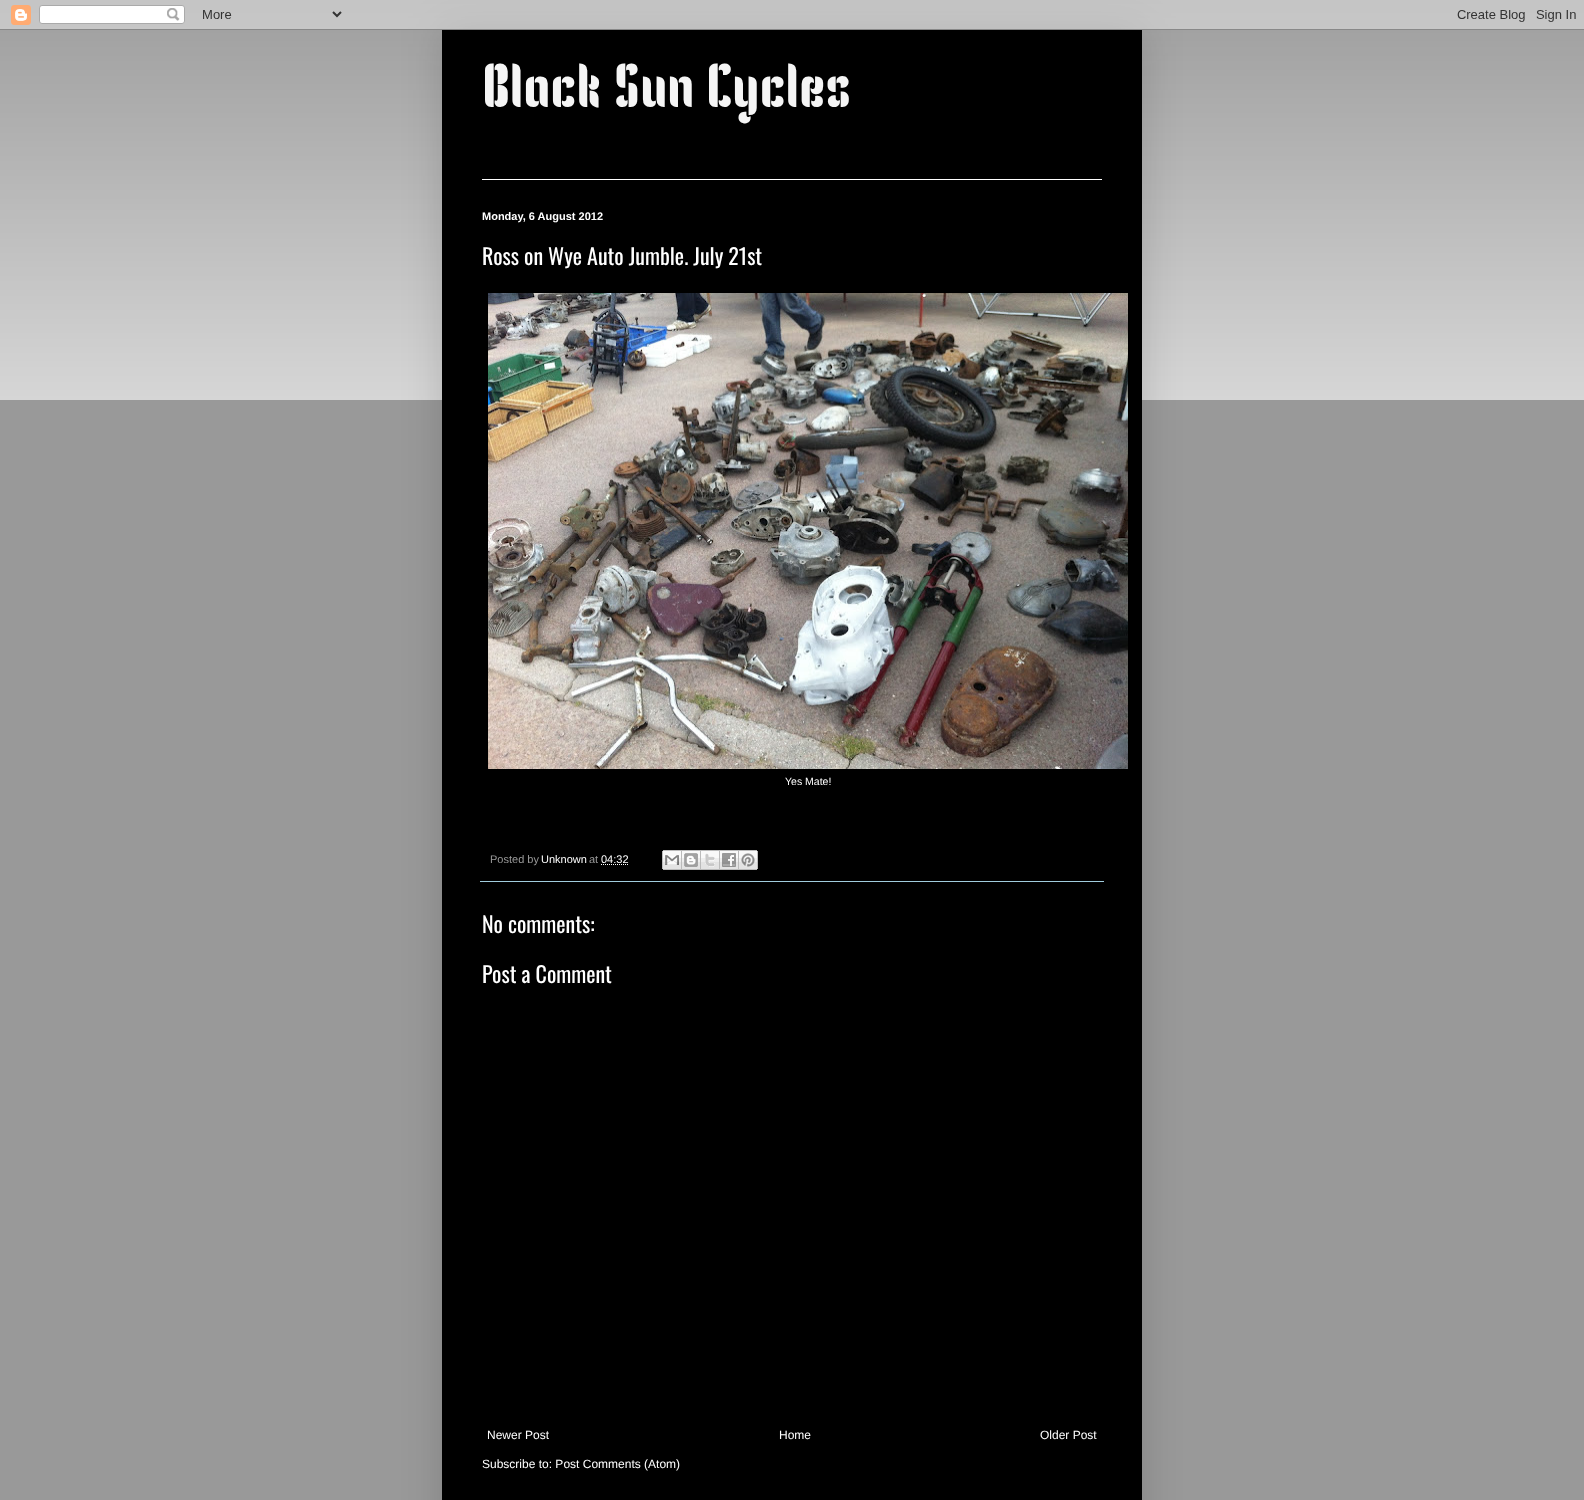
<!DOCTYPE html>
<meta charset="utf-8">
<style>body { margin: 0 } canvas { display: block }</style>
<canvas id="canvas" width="1584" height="1500"></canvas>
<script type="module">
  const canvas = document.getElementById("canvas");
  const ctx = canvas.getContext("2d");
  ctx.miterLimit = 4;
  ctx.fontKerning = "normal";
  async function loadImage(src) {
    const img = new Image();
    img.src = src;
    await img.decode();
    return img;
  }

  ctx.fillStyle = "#999999";
  ctx.fillRect(0, 0, 1584, 1500);
  ctx.drawImage(await loadImage("img1.png"), 0, 0, 1584, 400);
  ctx.fillStyle = "rgba(0, 0, 0, 0.15)";
  ctx.filter = "blur(20px)";
  ctx.beginPath();
  ctx.rect(442, 30, 700, 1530);
  ctx.fill();
  ctx.filter = "none";
  ctx.drawImage(await loadImage("img2.png"), 0, 0, 1584, 30);
  ctx.fillStyle = "#000000";
  ctx.fillRect(442, 30, 700, 1470);
  ctx.font = "60px Kenia";
  ctx.fillStyle = "#f5f5f5";
  ctx.fillText("Black Sun Cycles", 482, 107);
  ctx.fillStyle = "#ffffff";
  ctx.fillRect(482, 179, 620, 1);
  ctx.font = "bold 11px Liberation Sans";
  ctx.fillText("Monday, 6 August 2012", 482, 220);
  ctx.font = "22px Oswald";
  ctx.fillText("Ross on Wye Auto Jumble. July 21st", 482, 265);
  ctx.drawImage(await loadImage("img3.png"), 488, 293, 640, 476);
  ctx.font = "10.5px Liberation Sans";
  ctx.fillText("Yes Mate!", 785, 785);
  ctx.fillStyle = "#a1ccdd";
  ctx.fillRect(480, 881, 624, 1);
  ctx.font = "11px Liberation Sans";
  ctx.fillStyle = "#999999";
  ctx.fillText("Posted by", 490, 863);
  ctx.fillStyle = "#ffffff";
  ctx.fillText("Unknown", 541, 863);
  ctx.fillStyle = "#999999";
  ctx.fillText("at", 589, 863);
  ctx.fillStyle = "#ffffff";
  ctx.fillText("04:32", 601, 863);
  ctx.beginPath();
  ctx.moveTo(601, 864.5);
  ctx.lineTo(628, 864.5);
  ctx.strokeStyle = "#ffffff";
  ctx.setLineDash([1, 1]);
  ctx.stroke();
  ctx.drawImage(await loadImage("img4.png"), 662, 850, 20, 20);
  ctx.drawImage(await loadImage("img5.png"), 682, 850, 19, 20);
  ctx.drawImage(await loadImage("img6.png"), 701, 850, 19, 20);
  ctx.drawImage(await loadImage("img7.png"), 720, 850, 19, 20);
  ctx.drawImage(await loadImage("img8.png"), 739, 850, 19, 20);
  ctx.font = "22px Oswald";
  ctx.fillText("No comments:", 482, 933);
  ctx.fillText("Post a Comment", 482, 983);
  ctx.font = "12px Liberation Sans";
  ctx.fillText("Newer Post", 487, 1439);
  ctx.fillText("Home", 779, 1439);
  ctx.fillText("Older Post", 1040, 1439);
  ctx.fillText("Subscribe to: Post Comments (Atom)", 482, 1468);
</script>
